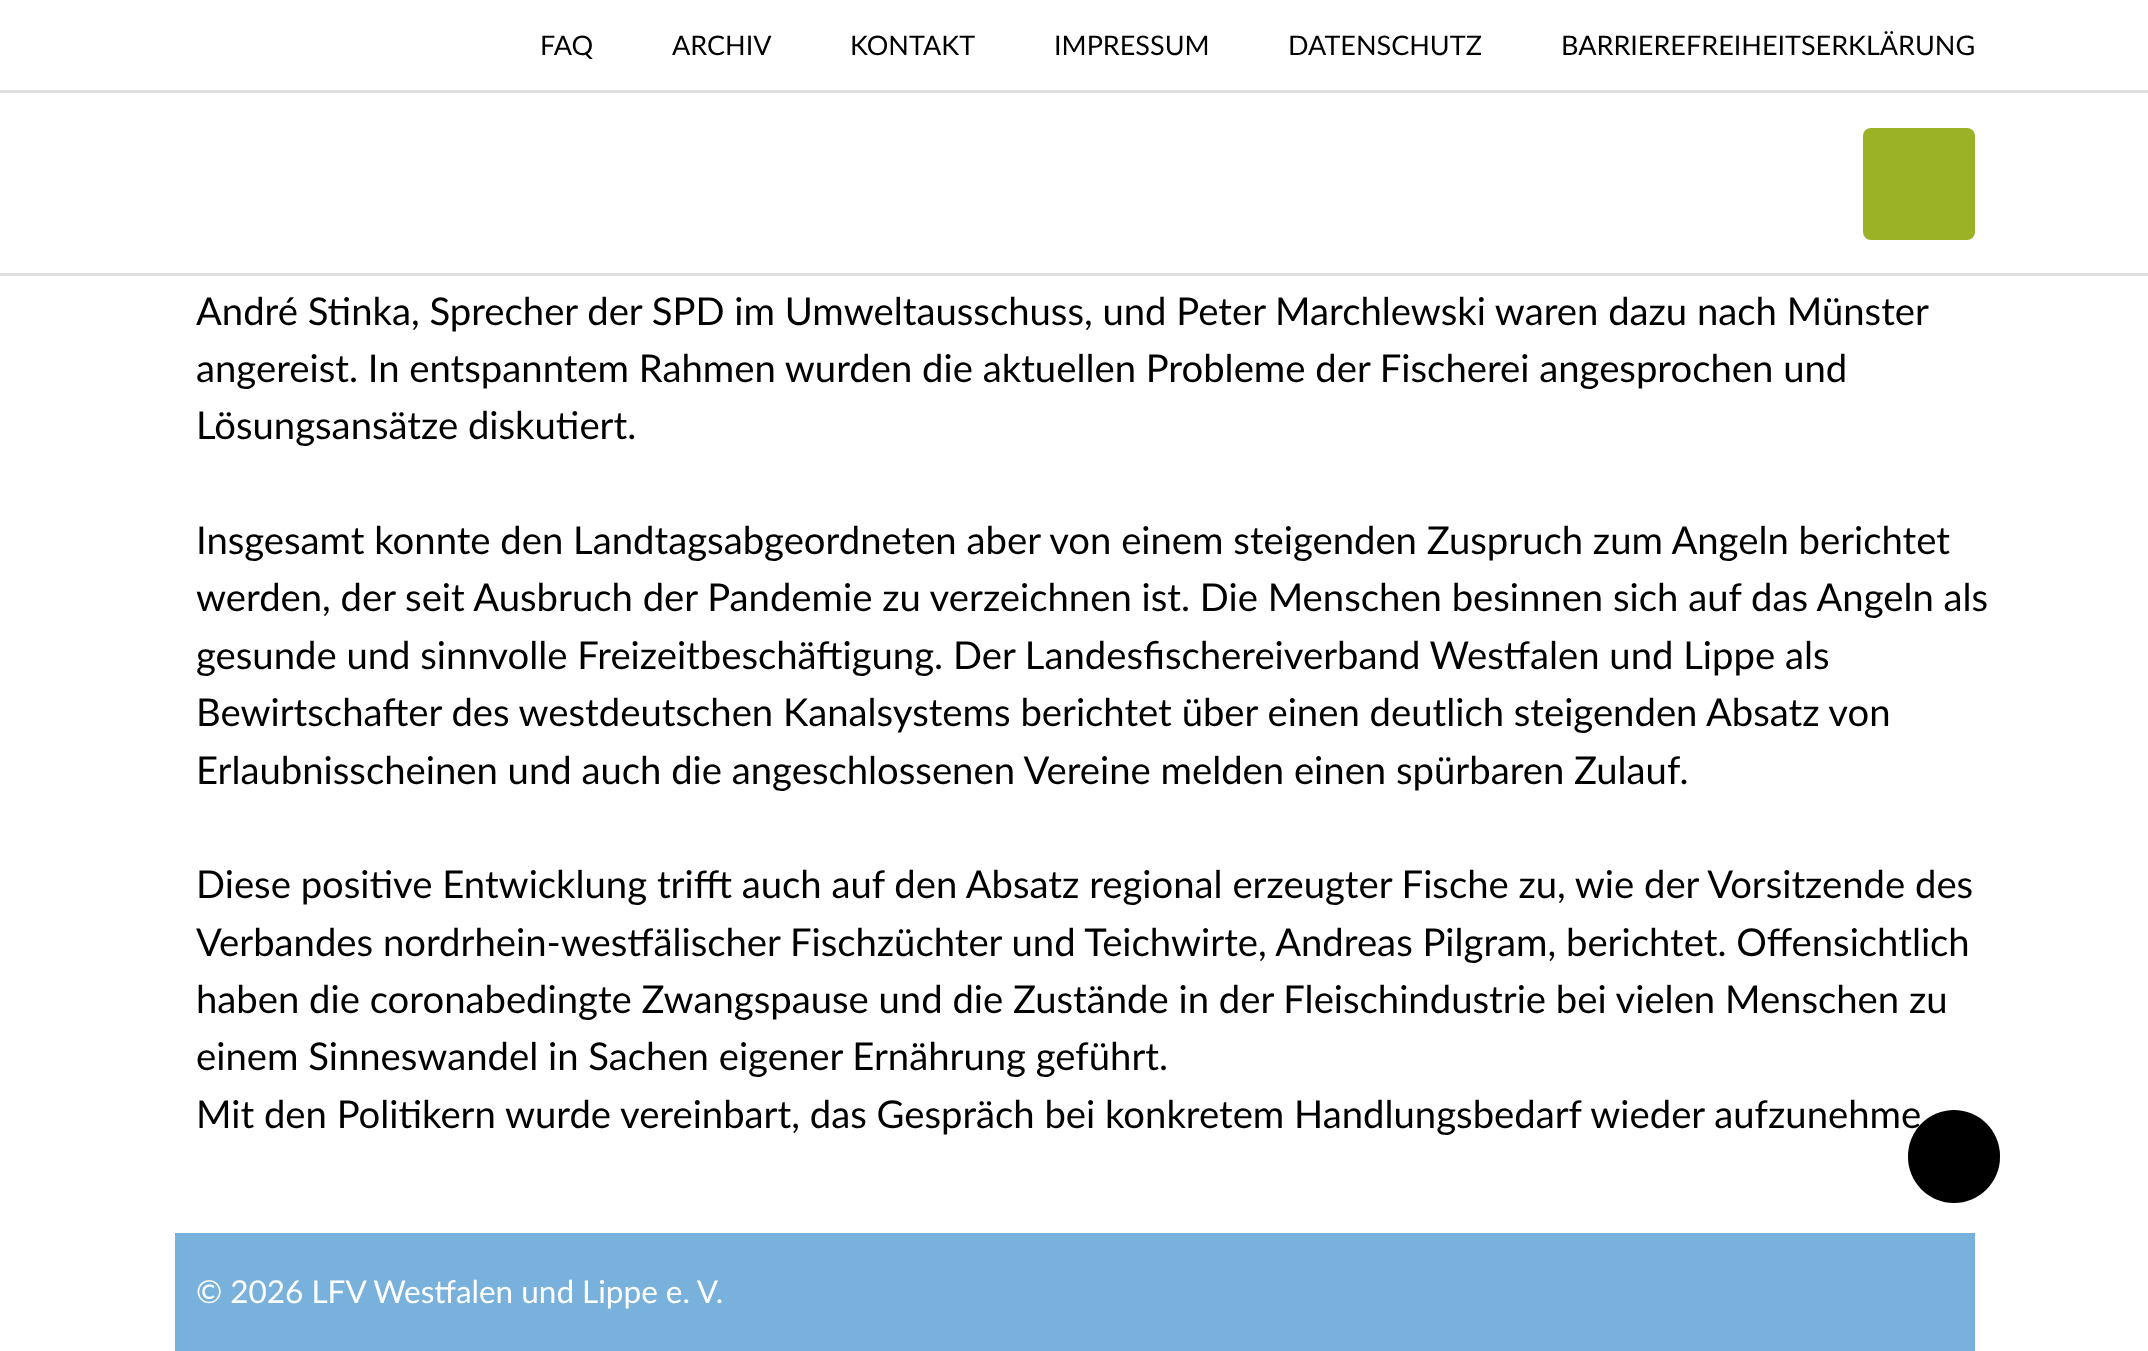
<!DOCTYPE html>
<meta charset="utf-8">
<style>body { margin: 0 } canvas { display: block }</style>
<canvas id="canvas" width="2148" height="1351"></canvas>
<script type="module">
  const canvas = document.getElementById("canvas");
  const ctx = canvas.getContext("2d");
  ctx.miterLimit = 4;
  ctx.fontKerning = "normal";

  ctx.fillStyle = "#ffffff";
  ctx.fillRect(0, 0, 2148, 1351);
  ctx.fillStyle = "#dfdfdf";
  ctx.fillRect(0, 90, 2148, 3);
  ctx.font = "27px Lato";
  ctx.fillStyle = "#000000";
  ctx.fillText("FAQ", 540, 55);
  ctx.fillText("ARCHIV", 672, 55);
  ctx.fillText("KONTAKT", 850, 55);
  ctx.fillText("IMPRESSUM", 1054, 55);
  ctx.fillText("DATENSCHUTZ", 1288, 55);
  ctx.fillText("BARRIEREFREIHEITSERKLÄRUNG", 1561, 55);
  ctx.fillStyle = "#dfdfdf";
  ctx.fillRect(0, 273, 2148, 3);
  ctx.fillStyle = "#9bb126";
  ctx.beginPath();
  ctx.roundRect(1863, 128, 112, 112, 8);
  ctx.fill();
  ctx.font = "38.25px Lato";
  ctx.fillStyle = "#000000";
  ctx.fillText("André Stinka, Sprecher der SPD im Umweltausschuss, und Peter Marchlewski waren dazu nach Münster", 196, 325);
  ctx.fillText("angereist. In entspanntem Rahmen wurden die aktuellen Probleme der Fischerei angesprochen und", 196, 382);
  ctx.fillText("Lösungsansätze diskutiert.", 196, 439);
  ctx.fillText("Insgesamt konnte den Landtagsabgeordneten aber von einem steigenden Zuspruch zum Angeln berichtet", 196, 554);
  ctx.fillText("werden, der seit Ausbruch der Pandemie zu verzeichnen ist. Die Menschen besinnen sich auf das Angeln als", 196, 611);
  ctx.fillText("gesunde und sinnvolle Freizeitbeschäftigung. Der Landesfischereiverband Westfalen und Lippe als", 196, 669);
  ctx.fillText("Bewirtschafter des westdeutschen Kanalsystems berichtet über einen deutlich steigenden Absatz von", 196, 726);
  ctx.fillText("Erlaubnisscheinen und auch die angeschlossenen Vereine melden einen spürbaren Zulauf.", 196, 784);
  ctx.fillText("Diese positive Entwicklung trifft auch auf den Absatz regional erzeugter Fische zu, wie der Vorsitzende des", 196, 898);
  ctx.fillText("Verbandes nordrhein-westfälischer Fischzüchter und Teichwirte, Andreas Pilgram, berichtet. Offensichtlich", 196, 956);
  ctx.fillText("haben die coronabedingte Zwangspause und die Zustände in der Fleischindustrie bei vielen Menschen zu", 196, 1013);
  ctx.fillText("einem Sinneswandel in Sachen eigener Ernährung geführt.", 196, 1070);
  ctx.fillText("Mit den Politikern wurde vereinbart, das Gespräch bei konkretem Handlungsbedarf wieder aufzunehme", 196, 1128);
  ctx.beginPath();
  ctx.roundRect(1908, 1110, 92, 93, 46);
  ctx.fill();
  ctx.fillStyle = "#78b1db";
  ctx.fillRect(175, 1233, 1800, 118);
  ctx.font = "31.5px Lato";
  ctx.fillStyle = "#ffffff";
  ctx.fillText("© 2026 LFV Westfalen und Lippe e. V.", 196, 1303);
</script>
